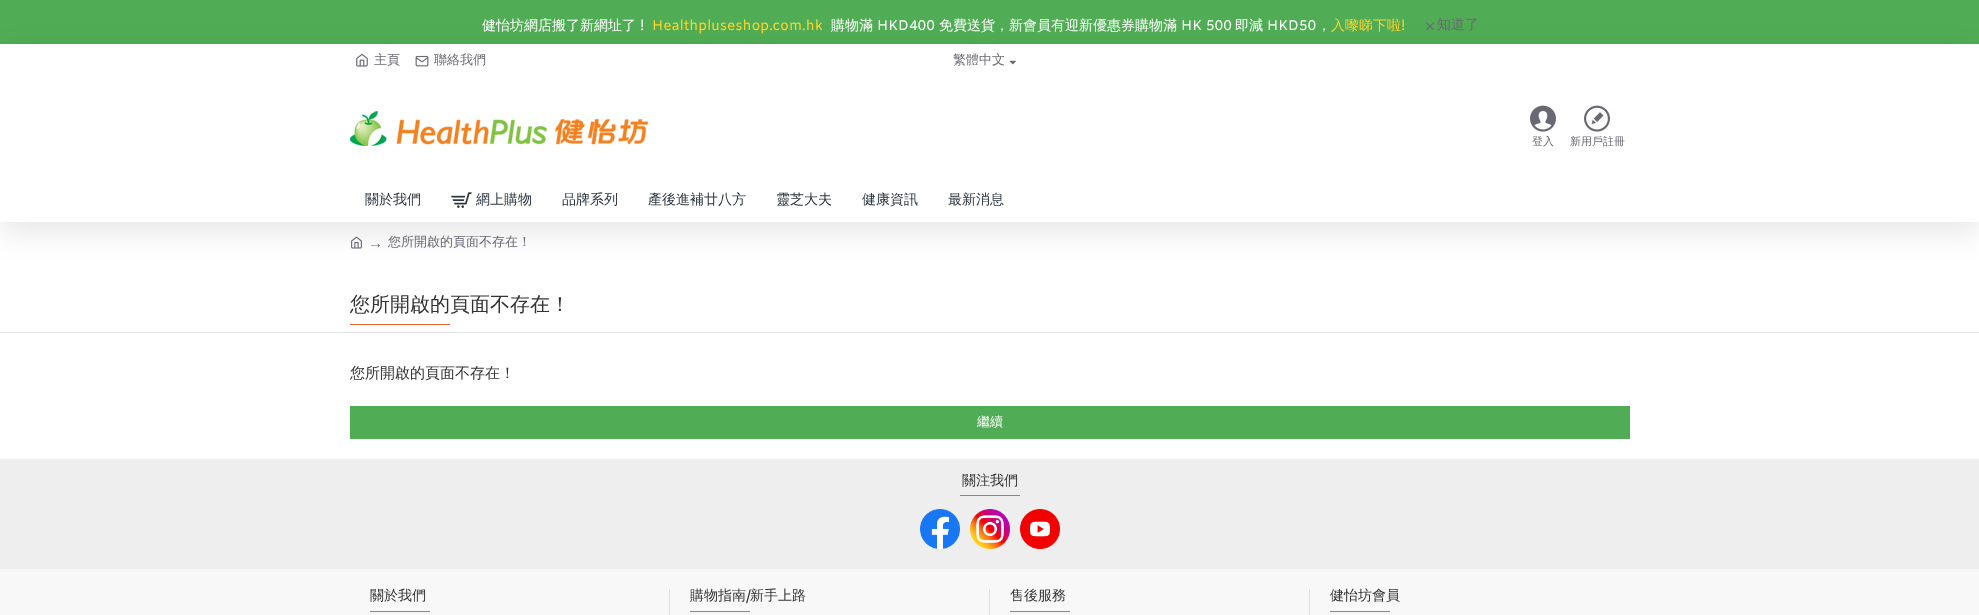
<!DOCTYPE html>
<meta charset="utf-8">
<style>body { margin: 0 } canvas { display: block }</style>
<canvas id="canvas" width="1979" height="615"></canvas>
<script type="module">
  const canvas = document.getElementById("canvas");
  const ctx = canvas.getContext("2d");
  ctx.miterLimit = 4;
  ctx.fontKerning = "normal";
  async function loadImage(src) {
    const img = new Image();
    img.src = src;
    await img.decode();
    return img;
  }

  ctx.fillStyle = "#ffffff";
  ctx.fillRect(0, 0, 1979, 615);
  ctx.fillStyle = "#50ad55";
  ctx.fillRect(0, 0, 1979, 44);
  ctx.font = "500 14px WenQuanYi Zen Hei";
  ctx.fillStyle = "#ffffff";
  ctx.fillText("健怡坊網店搬了新網址了", 482, 30);
  ctx.font = "14px Amiko";
  ctx.fillText("!", 640, 30);
  ctx.fillStyle = "#fed430";
  ctx.fillText("Healthpluseshop.com.hk", 652, 30);
  ctx.font = "500 14px WenQuanYi Zen Hei";
  ctx.fillStyle = "#ffffff";
  ctx.fillText("購物滿", 831, 30);
  ctx.font = "14px Amiko";
  ctx.fillText("HKD400", 877, 30);
  ctx.font = "500 14px WenQuanYi Zen Hei";
  ctx.fillText("免費送貨，新會員有迎新優惠券購物滿", 939, 30);
  ctx.font = "14px Amiko";
  ctx.fillText("HK 500", 1181, 30);
  ctx.font = "500 14px WenQuanYi Zen Hei";
  ctx.fillText("即減", 1235, 30);
  ctx.font = "14px Amiko";
  ctx.fillText("HKD50", 1267, 30);
  ctx.font = "500 14px WenQuanYi Zen Hei";
  ctx.fillText("，", 1317, 30);
  ctx.fillStyle = "#fed430";
  ctx.fillText("入嚟睇下啦", 1331, 30);
  ctx.font = "14px Amiko";
  ctx.fillText("!", 1401, 30);
  ctx.drawImage(await loadImage("img1.png"), 1426, 22, 8, 8);
  ctx.font = "500 14px WenQuanYi Zen Hei";
  ctx.fillStyle = "#696973";
  ctx.fillText("知道了", 1437, 29);
  ctx.drawImage(await loadImage("img9.png"), 351, 236, 11, 13);
  ctx.save();
  ctx.beginPath();
  ctx.moveTo(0, 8);
  ctx.lineTo(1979, 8);
  ctx.lineTo(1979, 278);
  ctx.lineTo(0, 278);
  ctx.closePath();
  ctx.moveTo(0, 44);
  ctx.lineTo(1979, 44);
  ctx.lineTo(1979, 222);
  ctx.lineTo(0, 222);
  ctx.closePath();
  ctx.clip("evenodd");
  ctx.fillStyle = "rgba(0, 0, 0, 0.1)";
  ctx.filter = "blur(15px)";
  ctx.beginPath();
  ctx.rect(0, 54, 1979, 178);
  ctx.fill();
  ctx.filter = "none";
  ctx.restore();
  ctx.drawImage(await loadImage("img2.png"), 356, 53, 12, 14);
  ctx.font = "500 13px WenQuanYi Zen Hei";
  ctx.fillText("主頁", 374, 64);
  ctx.drawImage(await loadImage("img3.png"), 415, 55, 14, 12);
  ctx.save();
  ctx.beginPath();
  ctx.rect(434, 51, 52, 20);
  ctx.clip();
  ctx.fillText("聯絡我們", 434, 64);
  ctx.restore();
  ctx.fillText("繁體中文", 953, 64);
  ctx.drawImage(await loadImage("img4.png"), 1009, 60, 7, 5);
  ctx.drawImage(await loadImage("img5.png"), 350, 111, 298, 35);
  ctx.drawImage(await loadImage("img6.png"), 1530, 105, 26, 27);
  ctx.font = "500 11px WenQuanYi Zen Hei";
  ctx.fillText("登入", 1532, 145);
  ctx.drawImage(await loadImage("img7.png"), 1584, 105, 26, 27);
  ctx.fillText("新用戶註冊", 1570, 145);
  ctx.font = "500 14px WenQuanYi Zen Hei";
  ctx.fillStyle = "#2c3640";
  ctx.fillText("關於我們", 365, 204);
  ctx.drawImage(await loadImage("img8.png"), 451, 192, 21, 16);
  ctx.fillText("網上購物", 476, 204);
  ctx.fillText("品牌系列", 562, 204);
  ctx.fillText("產後進補廿八方", 648, 204);
  ctx.fillText("靈芝大夫", 776, 204);
  ctx.fillText("健康資訊", 862, 204);
  ctx.fillText("最新消息", 948, 204);
  ctx.font = "15px Liberation Serif";
  ctx.fillStyle = "#696973";
  ctx.fillText("→", 368, 248);
  ctx.font = "500 13px WenQuanYi Zen Hei";
  ctx.fillText("您所開啟的頁面不存在！", 388, 246);
  ctx.fillStyle = "#e2e2e2";
  ctx.fillRect(0, 332, 1979, 1);
  ctx.font = "500 20px WenQuanYi Zen Hei";
  ctx.fillStyle = "#333333";
  ctx.fillText("您所開啟的頁面不存在！", 350, 311);
  ctx.fillStyle = "#e96631";
  ctx.fillRect(350, 324, 100, 1);
  ctx.font = "500 15px WenQuanYi Zen Hei";
  ctx.fillStyle = "#333333";
  ctx.fillText("您所開啟的頁面不存在！", 350, 378);
  ctx.fillStyle = "#50ad55";
  ctx.fillRect(350, 406, 1280, 33);
  ctx.font = "500 13px WenQuanYi Zen Hei";
  ctx.fillStyle = "#ffffff";
  ctx.fillText("繼續", 977, 426);
  ctx.fillStyle = "#f8f8f8";
  ctx.fillRect(0, 569, 1979, 46);
  ctx.fillStyle = "#eeeeee";
  ctx.fillRect(0, 459, 1979, 110);
  ctx.font = "500 14px WenQuanYi Zen Hei";
  ctx.fillStyle = "#333333";
  ctx.fillText("關注我們", 962, 485);
  ctx.fillStyle = "#e96631";
  ctx.fillRect(960, 495, 60, 1);
  ctx.drawImage(await loadImage("img10.png"), 920, 509, 40, 40);
  ctx.drawImage(await loadImage("img11.png"), 970, 509, 40, 40);
  ctx.drawImage(await loadImage("img12.png"), 1020, 509, 40, 40);
  ctx.fillStyle = "#e2e2e2";
  ctx.fillRect(669, 589, 1, 26);
  ctx.fillStyle = "#333333";
  ctx.fillText("關於我們", 370, 600);
  ctx.fillStyle = "#e96631";
  ctx.fillRect(370, 611, 60, 1);
  ctx.fillStyle = "#e2e2e2";
  ctx.fillRect(989, 589, 1, 26);
  ctx.fillStyle = "#333333";
  ctx.fillText("購物指南", 690, 600);
  ctx.font = "14px Amiko";
  ctx.fillText("/", 746, 600);
  ctx.font = "500 14px WenQuanYi Zen Hei";
  ctx.fillText("新手上路", 750, 600);
  ctx.fillStyle = "#e96631";
  ctx.fillRect(690, 611, 60, 1);
  ctx.fillStyle = "#e2e2e2";
  ctx.fillRect(1309, 589, 1, 26);
  ctx.fillStyle = "#333333";
  ctx.fillText("售後服務", 1010, 600);
  ctx.fillStyle = "#e96631";
  ctx.fillRect(1010, 611, 60, 1);
  ctx.fillStyle = "#333333";
  ctx.fillText("健怡坊會員", 1330, 600);
  ctx.fillStyle = "#e96631";
  ctx.fillRect(1330, 611, 60, 1);
</script>
